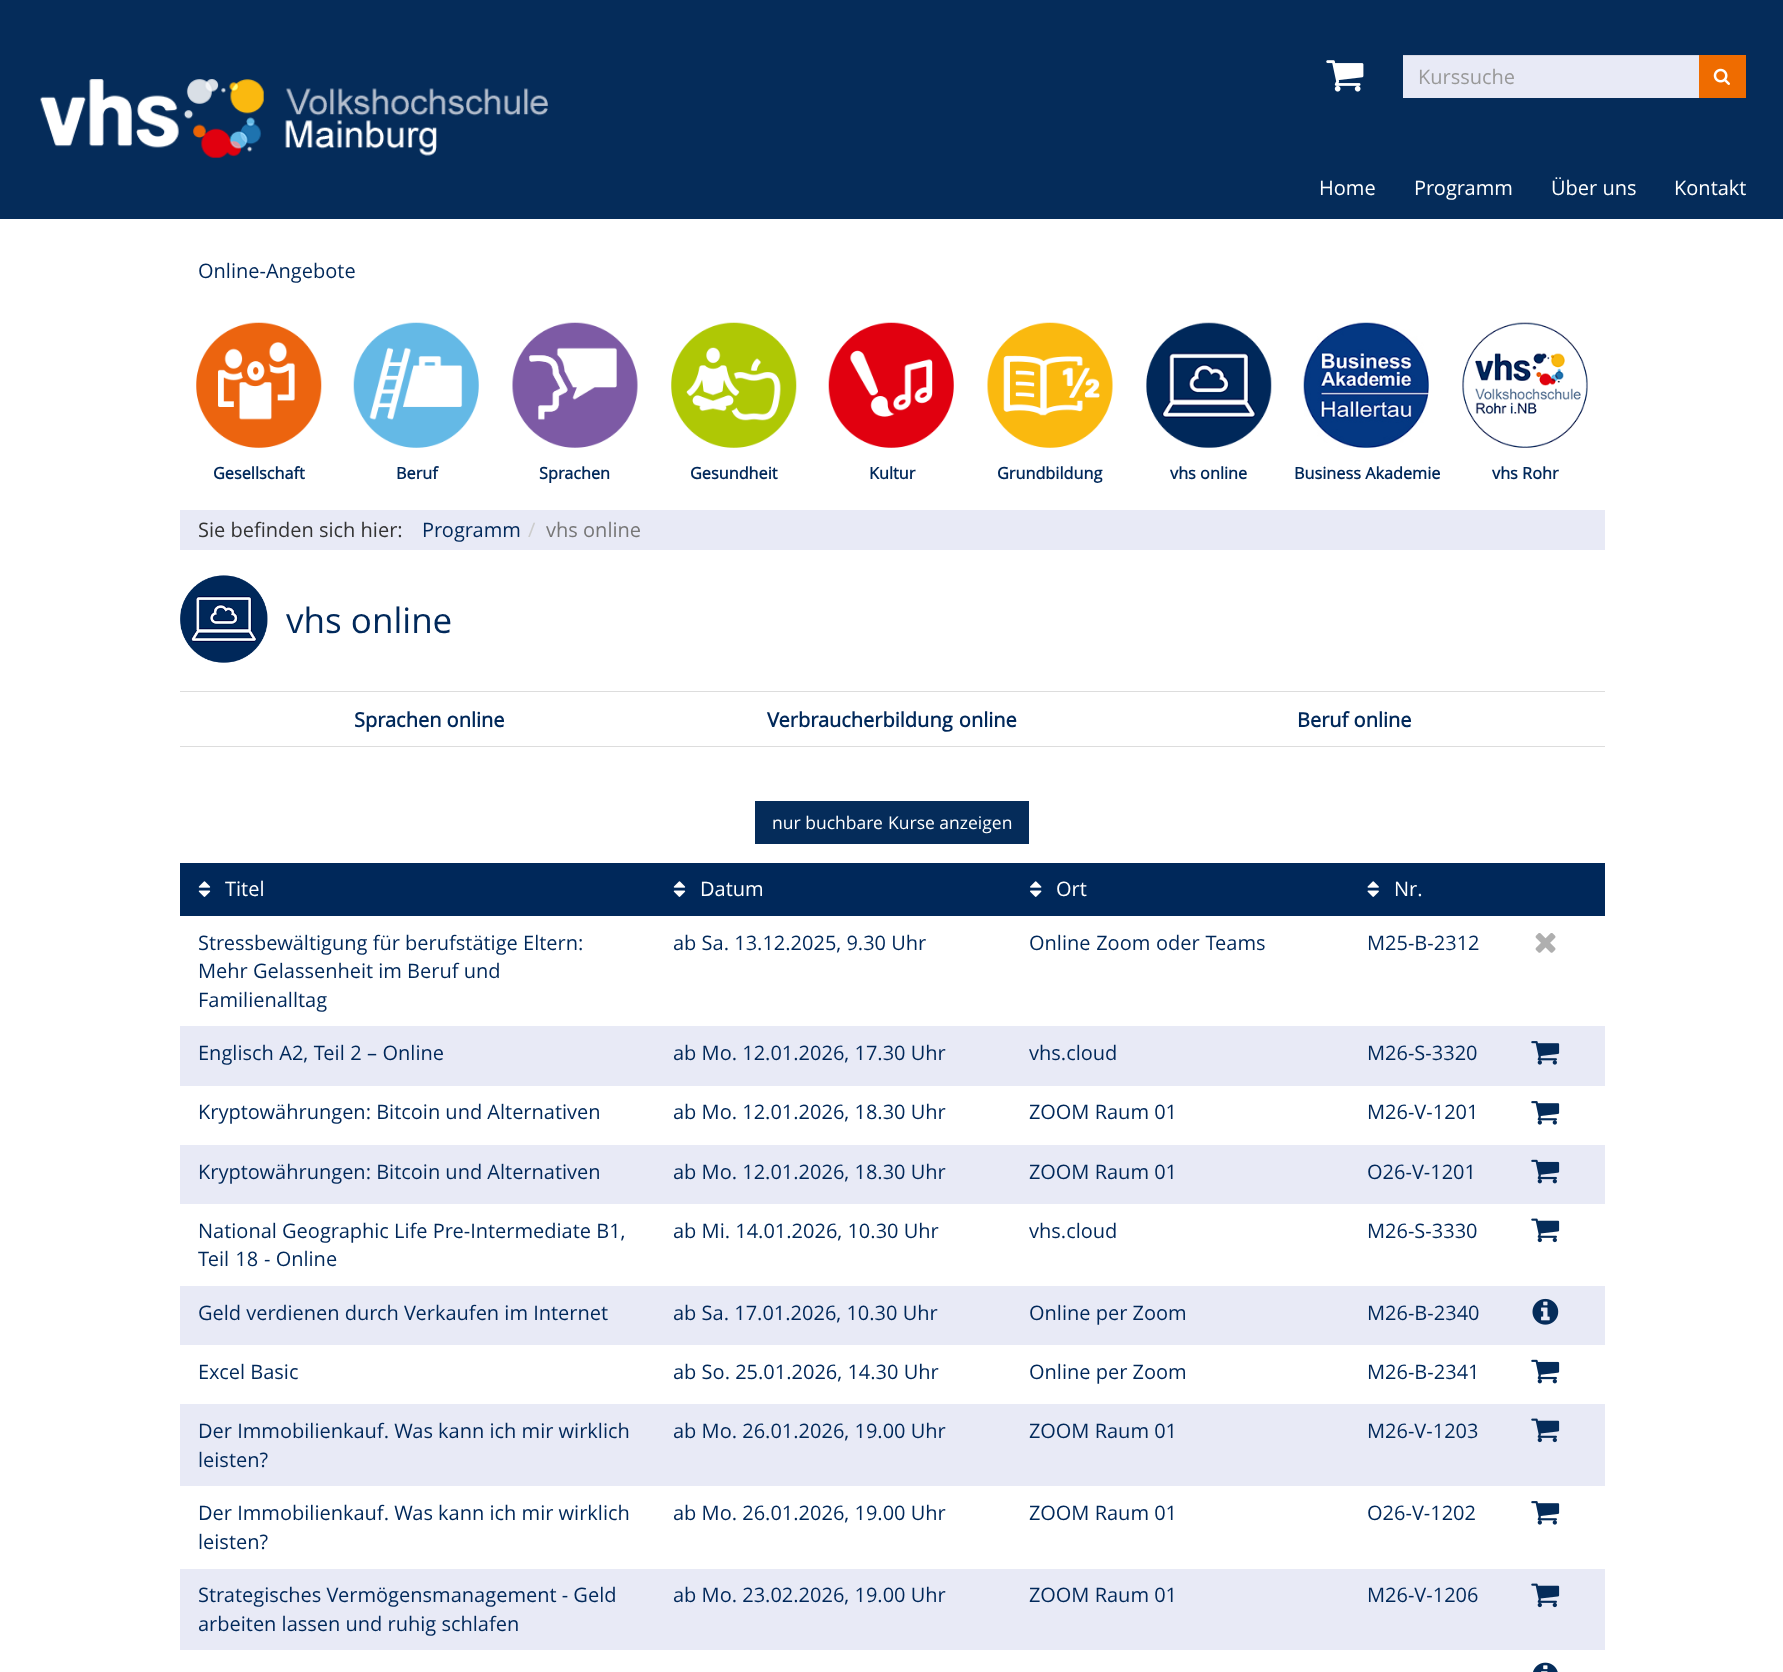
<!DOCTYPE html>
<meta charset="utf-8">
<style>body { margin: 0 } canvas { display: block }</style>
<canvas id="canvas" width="1783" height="1672"></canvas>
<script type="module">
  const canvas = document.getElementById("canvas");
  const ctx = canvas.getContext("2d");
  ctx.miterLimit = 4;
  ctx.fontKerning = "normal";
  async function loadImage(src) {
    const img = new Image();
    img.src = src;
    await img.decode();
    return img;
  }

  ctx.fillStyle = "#ffffff";
  ctx.fillRect(0, 0, 1783, 1672);
  ctx.fillStyle = "#052c5a";
  ctx.fillRect(0, 0, 1783, 219);
  ctx.drawImage(await loadImage("img1.png"), 1326, 60, 38, 32);
  ctx.fillStyle = "#e8eaf6";
  ctx.fillRect(1403, 56, 296, 42);
  ctx.fillStyle = "#d7d8e4";
  ctx.fillRect(1403, 55, 296, 1);
  ctx.font = "20px Open Sans";
  ctx.fillStyle = "#999999";
  ctx.fillText("Kurssuche", 1418, 84);
  ctx.fillStyle = "#ef6c00";
  ctx.fillRect(1699, 55, 47, 43);
  ctx.drawImage(await loadImage("img2.png"), 1713, 68, 17, 17);
  ctx.drawImage(await loadImage("img3.png"), 40, 79, 508, 79);
  ctx.fillStyle = "#ffffff";
  ctx.fillText("Home", 1319, 195);
  ctx.fillText("Programm", 1414, 195);
  ctx.fillText("Über uns", 1551, 195);
  ctx.fillText("Kontakt", 1674, 195);
  ctx.fillStyle = "#00285a";
  ctx.fillText("Online-Angebote", 198, 278);
  ctx.drawImage(await loadImage("img4.png"), 196, 322, 126, 126);
  ctx.font = "bold 16.25px Open Sans";
  ctx.fillText("Gesellschaft", 213, 479);
  ctx.drawImage(await loadImage("img5.png"), 353, 322, 126, 126);
  ctx.fillText("Beruf", 396, 479);
  ctx.drawImage(await loadImage("img6.png"), 512, 322, 126, 126);
  ctx.fillText("Sprachen", 539, 479);
  ctx.drawImage(await loadImage("img7.png"), 671, 322, 126, 126);
  ctx.fillText("Gesundheit", 690, 479);
  ctx.drawImage(await loadImage("img8.png"), 828, 322, 126, 126);
  ctx.fillText("Kultur", 869, 479);
  ctx.drawImage(await loadImage("img9.png"), 987, 322, 126, 126);
  ctx.fillText("Grundbildung", 997, 479);
  ctx.drawImage(await loadImage("img10.png"), 1146, 322, 126, 126);
  ctx.fillText("vhs online", 1170, 479);
  ctx.drawImage(await loadImage("img11.png"), 1303, 322, 126, 126);
  ctx.fillText("Business Akademie", 1294, 479);
  ctx.drawImage(await loadImage("img12.png"), 1462, 322, 126, 126);
  ctx.fillText("vhs Rohr", 1492, 479);
  ctx.fillStyle = "#e8eaf6";
  ctx.fillRect(180, 510, 1425, 40);
  ctx.font = "20px Open Sans";
  ctx.fillStyle = "#333333";
  ctx.fillText("Sie befinden sich hier:", 198, 537);
  ctx.fillStyle = "#00285a";
  ctx.fillText("Programm", 422, 537);
  ctx.fillStyle = "#cccccc";
  ctx.fillText("/", 528, 537);
  ctx.fillStyle = "#777777";
  ctx.fillText("vhs online", 546, 537);
  ctx.drawImage(await loadImage("img13.png"), 180, 575, 88, 88);
  ctx.font = "35px Open Sans";
  ctx.fillStyle = "#00285a";
  ctx.fillText("vhs online", 286, 633);
  ctx.fillStyle = "#dddddd";
  ctx.fillRect(180, 691, 1425, 1);
  ctx.fillRect(180, 746, 1425, 1);
  ctx.font = "bold 20px Open Sans";
  ctx.fillStyle = "#00285a";
  ctx.fillText("Sprachen online", 354, 727);
  ctx.wordSpacing = "1px";
  ctx.fillText("Verbraucherbildung online", 767, 727);
  ctx.wordSpacing = "0px";
  ctx.fillText("Beruf online", 1297, 727);
  ctx.fillStyle = "#052c5a";
  ctx.fillRect(755, 801, 274, 43);
  ctx.font = "17.5px Open Sans";
  ctx.fillStyle = "#ffffff";
  ctx.fillText("nur buchbare", 772, 829);
  ctx.fillText("Kurse anzeigen", 888, 829);
  ctx.fillStyle = "#00285a";
  ctx.fillRect(180, 863, 1425, 53);
  ctx.drawImage(await loadImage("img14.png"), 198, 881, 13, 16);
  ctx.font = "20px Open Sans";
  ctx.fillStyle = "#ffffff";
  ctx.fillText("Titel", 225, 896);
  ctx.drawImage(await loadImage("img14.png"), 673, 881, 13, 16);
  ctx.fillText("Datum", 700, 896);
  ctx.drawImage(await loadImage("img15.png"), 1030, 881, 12, 16);
  ctx.fillText("Ort", 1056, 896);
  ctx.drawImage(await loadImage("img16.png"), 1367, 881, 12, 16);
  ctx.fillText("Nr.", 1394, 896);
  ctx.fillStyle = "#00285a";
  ctx.fillText("Stressbewältigung für berufstätige Eltern:", 198, 950);
  ctx.fillText("Mehr Gelassenheit im Beruf und", 198, 978);
  ctx.fillText("Familienalltag", 198, 1007);
  ctx.fillText("ab Sa. 13.12.2025, 9.30 Uhr", 673, 950);
  ctx.wordSpacing = "0.5px";
  ctx.fillText("Online Zoom oder Teams", 1029, 950);
  ctx.wordSpacing = "0px";
  ctx.fillText("M25-B-2312", 1367, 950);
  ctx.drawImage(await loadImage("img17.png"), 1535, 933, 21, 20);
  ctx.fillStyle = "#e8eaf6";
  ctx.fillRect(180, 1026, 1425, 60);
  ctx.wordSpacing = "0.25px";
  ctx.fillStyle = "#00285a";
  ctx.fillText("Englisch A2, Teil 2 – Online", 198, 1060);
  ctx.wordSpacing = "0px";
  ctx.fillText("ab Mo. 12.01.2026, 17.30 Uhr", 673, 1060);
  ctx.fillText("vhs.cloud", 1029, 1060);
  ctx.fillText("M26-S-3320", 1367, 1060);
  ctx.drawImage(await loadImage("img18.png"), 1531, 1041, 29, 24);
  ctx.fillText("Kryptowährungen: Bitcoin und Alternativen", 198, 1119);
  ctx.fillText("ab Mo. 12.01.2026, 18.30 Uhr", 673, 1119);
  ctx.fillText("ZOOM Raum 01", 1029, 1119);
  ctx.fillText("M26-V-1201", 1367, 1119);
  ctx.drawImage(await loadImage("img19.png"), 1531, 1101, 29, 24);
  ctx.fillStyle = "#e8eaf6";
  ctx.fillRect(180, 1145, 1425, 59);
  ctx.fillStyle = "#00285a";
  ctx.fillText("Kryptowährungen: Bitcoin und Alternativen", 198, 1179);
  ctx.fillText("ab Mo. 12.01.2026, 18.30 Uhr", 673, 1179);
  ctx.fillText("ZOOM Raum 01", 1029, 1179);
  ctx.fillText("O26-V-1201", 1367, 1179);
  ctx.drawImage(await loadImage("img20.png"), 1531, 1159, 29, 25);
  ctx.fillText("National Geographic Life Pre-Intermediate B1,", 198, 1238);
  ctx.wordSpacing = "1px";
  ctx.fillText("Teil 18", 198, 1266);
  ctx.wordSpacing = "0px";
  ctx.fillText("- Online", 264, 1266);
  ctx.fillText("ab Mi. 14.01.2026, 10.30 Uhr", 673, 1238);
  ctx.fillText("vhs.cloud", 1029, 1238);
  ctx.fillText("M26-S-3330", 1367, 1238);
  ctx.drawImage(await loadImage("img21.png"), 1531, 1218, 29, 25);
  ctx.fillStyle = "#e8eaf6";
  ctx.fillRect(180, 1286, 1425, 59);
  ctx.fillStyle = "#00285a";
  ctx.fillText("Geld verdienen durch Verkaufen im Internet", 198, 1320);
  ctx.fillText("ab Sa. 17.01.2026, 10.30 Uhr", 673, 1320);
  ctx.fillText("Online per Zoom", 1029, 1320);
  ctx.fillText("M26-B-2340", 1367, 1320);
  ctx.drawImage(await loadImage("img22.png"), 1532, 1298, 27, 27);
  ctx.fillText("Excel Basic", 198, 1379);
  ctx.fillText("ab So. 25.01.2026, 14.30 Uhr", 673, 1379);
  ctx.fillText("Online per Zoom", 1029, 1379);
  ctx.fillText("M26-B-2341", 1367, 1379);
  ctx.drawImage(await loadImage("img23.png"), 1531, 1359, 29, 25);
  ctx.fillStyle = "#e8eaf6";
  ctx.fillRect(180, 1404, 1425, 82);
  ctx.fillStyle = "#00285a";
  ctx.fillText("Der Immobilienkauf. Was kann ich mir wirklich", 198, 1438);
  ctx.fillText("leisten?", 198, 1467);
  ctx.fillText("ab Mo. 26.01.2026, 19.00 Uhr", 673, 1438);
  ctx.fillText("ZOOM Raum 01", 1029, 1438);
  ctx.fillText("M26-V-1203", 1367, 1438);
  ctx.drawImage(await loadImage("img24.png"), 1531, 1418, 29, 25);
  ctx.fillText("Der Immobilienkauf. Was kann ich mir wirklich", 198, 1520);
  ctx.fillText("leisten?", 198, 1549);
  ctx.fillText("ab Mo. 26.01.2026, 19.00 Uhr", 673, 1520);
  ctx.fillText("ZOOM Raum 01", 1029, 1520);
  ctx.fillText("O26-V-1202", 1367, 1520);
  ctx.drawImage(await loadImage("img19.png"), 1531, 1501, 29, 24);
  ctx.fillStyle = "#e8eaf6";
  ctx.fillRect(180, 1569, 1425, 81);
  ctx.fillStyle = "#00285a";
  ctx.fillText("Strategisches Vermögensmanagement - Geld", 198, 1602);
  ctx.fillText("arbeiten lassen und ruhig schlafen", 198, 1631);
  ctx.fillText("ab Mo. 23.02.2026, 19.00 Uhr", 673, 1602);
  ctx.fillText("ZOOM Raum 01", 1029, 1602);
  ctx.fillText("M26-V-1206", 1367, 1602);
  ctx.drawImage(await loadImage("img24.png"), 1531, 1583, 29, 25);
  ctx.drawImage(await loadImage("img25.png"), 1533, 1662, 25, 10);
</script>
